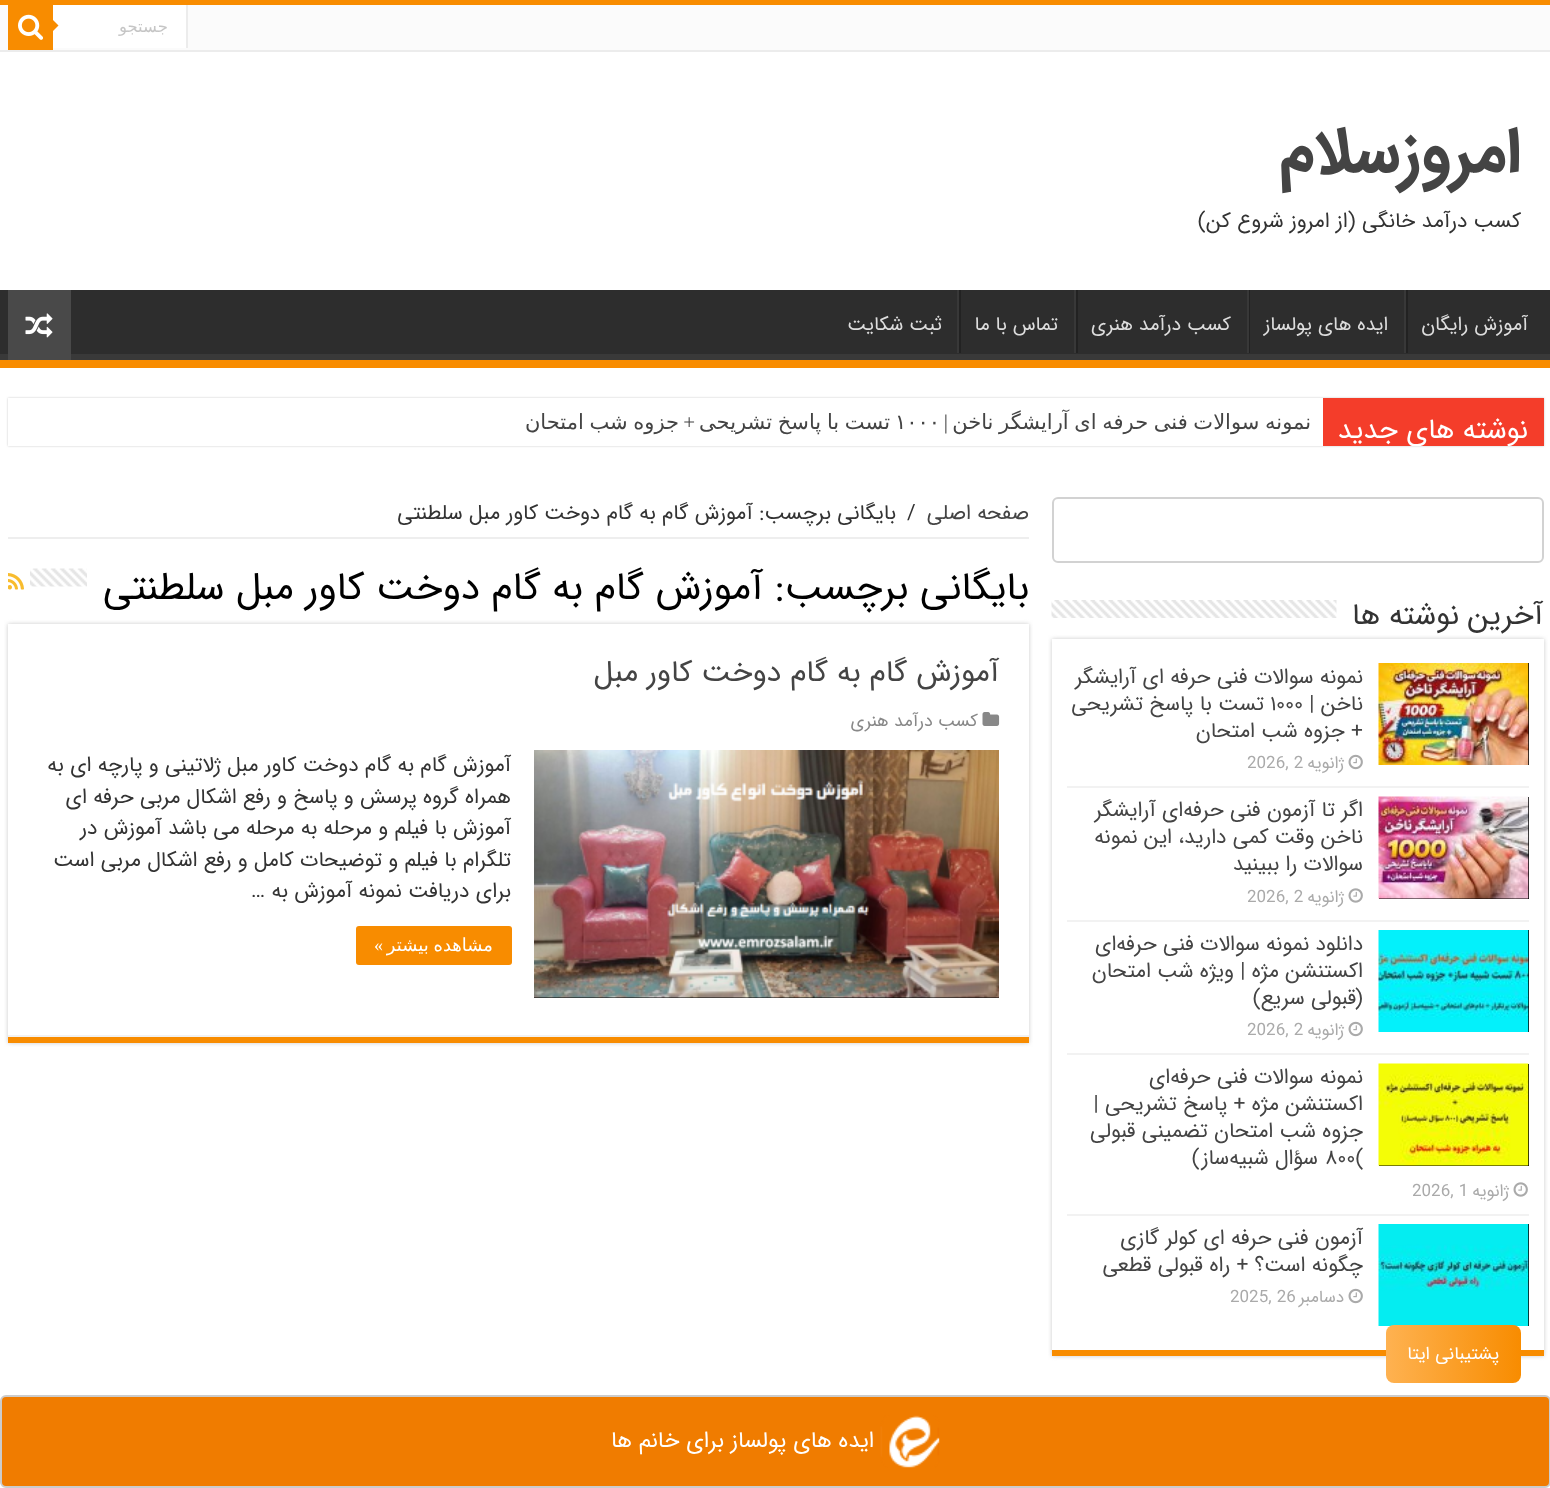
<!DOCTYPE html>
<meta charset="utf-8">
<style>body { margin: 0 } canvas { display: block }</style>
<canvas id="canvas" width="1550" height="1488"></canvas>
<script type="module">
  const canvas = document.getElementById("canvas");
  const ctx = canvas.getContext("2d");
  ctx.miterLimit = 4;
  ctx.fontKerning = "normal";
  async function loadImage(src) {
    const img = new Image();
    img.src = src;
    await img.decode();
    return img;
  }
  let gradient;

  ctx.fillStyle = "#ffffff";
  ctx.fillRect(0, 0, 1550, 1488);
  ctx.fillStyle = "#f88c00";
  ctx.fillRect(0, 0, 1550, 5);
  ctx.fillStyle = "#fbfbfb";
  ctx.fillRect(0, 5, 1550, 45);
  ctx.fillStyle = "#ececec";
  ctx.fillRect(0, 50, 1550, 2);
  ctx.fillStyle = "#ffffff";
  ctx.fillRect(53, 5, 133, 43);
  ctx.fillStyle = "#ececec";
  ctx.fillRect(186, 5, 2, 43);
  ctx.direction = "rtl";
  ctx.font = "16.5px DejaVu Sans";
  ctx.fillStyle = "#c5c5c5";
  ctx.fillText("جستجو", 168, 32);
  ctx.fillStyle = "#f88c00";
  ctx.fillRect(8, 5, 45, 45);
  ctx.drawImage(await loadImage("img1.png"), 18, 14, 25, 26);
  ctx.beginPath();
  ctx.moveTo(52.5, 31.5);
  ctx.lineTo(52.5, 19.5);
  ctx.lineTo(58.5, 25.5);
  ctx.closePath();
  ctx.fill();
  ctx.font = "bold 64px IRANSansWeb";
  ctx.fillStyle = "#444444";
  ctx.fillText("امروزسلام", 1521, 171);
  ctx.font = "21px IRANSansWeb";
  ctx.fillStyle = "#333333";
  ctx.fillText("کسب درآمد خانگی (از امروز شروع کن)", 1521, 227);
  ctx.fillStyle = "#2d2d2d";
  ctx.fillRect(0, 290, 1550, 64);
  ctx.save();
  ctx.beginPath();
  ctx.rect(0, 290, 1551, 70);
  ctx.clip();
  ctx.fillStyle = "#393939";
  ctx.beginPath();
  ctx.moveTo(-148, 141);
  ctx.lineTo(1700, 141);
  ctx.lineTo(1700, 508);
  ctx.lineTo(-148, 508);
  ctx.closePath();
  ctx.moveTo(-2, 280);
  ctx.lineTo(1550, 280);
  ctx.bezierCurveTo(1550, 280, 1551, 281, 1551, 282);
  ctx.lineTo(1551, 352);
  ctx.bezierCurveTo(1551, 353, 1550, 354, 1550, 354);
  ctx.lineTo(-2, 354);
  ctx.bezierCurveTo(-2, 354, -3, 353, -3, 352);
  ctx.lineTo(-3, 282);
  ctx.bezierCurveTo(-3, 281, -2, 280, -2, 280);
  ctx.closePath();
  ctx.fill("evenodd");
  ctx.restore();
  ctx.fillStyle = "#f88c00";
  ctx.fillRect(0, 360, 1550, 8);
  ctx.font = "19.5px IRANSansWeb";
  ctx.fillStyle = "#dddddd";
  ctx.fillText("آموزش رایگان", 1528, 330);
  ctx.fillStyle = "#222222";
  ctx.fillRect(1406, 290, 2, 63);
  ctx.fillStyle = "#383838";
  ctx.fillRect(1404, 290, 2, 63);
  ctx.fillStyle = "#dddddd";
  ctx.fillText("ایده های پولساز", 1388, 330);
  ctx.fillStyle = "#222222";
  ctx.fillRect(1249, 290, 1, 63);
  ctx.fillStyle = "#383838";
  ctx.fillRect(1247, 290, 2, 63);
  ctx.fillStyle = "#dddddd";
  ctx.fillText("کسب درآمد هنری", 1231, 330);
  ctx.fillStyle = "#222222";
  ctx.fillRect(1076, 290, 2, 63);
  ctx.fillStyle = "#383838";
  ctx.fillRect(1074, 290, 2, 63);
  ctx.fillStyle = "#dddddd";
  ctx.fillText("تماس با ما", 1058, 330);
  ctx.fillStyle = "#222222";
  ctx.fillRect(959, 290, 2, 63);
  ctx.fillStyle = "#383838";
  ctx.fillRect(957, 290, 2, 63);
  ctx.fillStyle = "#dddddd";
  ctx.fillText("ثبت شکایت", 942, 330);
  ctx.fillStyle = "#494949";
  ctx.fillRect(8, 290, 63, 70);
  ctx.drawImage(await loadImage("img2.png"), 25, 313, 28, 25);
  ctx.fillStyle = "#cacaca";
  ctx.filter = "blur(1px)";
  ctx.beginPath();
  ctx.rect(8, 398, 1536, 48);
  ctx.fill();
  ctx.filter = "none";
  ctx.fillStyle = "#ffffff";
  ctx.fillRect(8, 398, 1315, 48);
  ctx.fillStyle = "#f43d2a";
  ctx.fillRect(1323, 398, 221, 48);
  ctx.save();
  ctx.beginPath();
  ctx.rect(8, 398, 1536, 48);
  ctx.clip();
  ctx.font = "28px IRANSansWeb";
  ctx.fillStyle = "#ffffff";
  ctx.fillText("نوشته های جدید", 1528, 438);
  ctx.restore();
  ctx.wordSpacing = "-1px";
  ctx.font = "21px DejaVu Sans";
  ctx.fillStyle = "#444444";
  ctx.fillText("نمونه سوالات فنی حرفه ای آرایشگر ناخن", 1311, 429);
  ctx.wordSpacing = "0px";
  ctx.font = "21px Liberation Serif";
  ctx.fillText("|", 948, 429);
  ctx.direction = "ltr";
  ctx.font = "21px DejaVu Sans";
  ctx.fillText("۱۰۰۰", 895, 429);
  ctx.wordSpacing = "-1px";
  ctx.direction = "rtl";
  ctx.fillText("تست با پاسخ تشریحی", 890, 429);
  ctx.wordSpacing = "0px";
  ctx.font = "21px Liberation Serif";
  ctx.fillText("+", 695, 429);
  ctx.wordSpacing = "-1px";
  ctx.font = "21px DejaVu Sans";
  ctx.fillText("جزوه شب امتحان", 679, 429);
  ctx.beginPath();
  ctx.roundRect(1053, 498, 490, 64, 5);
  ctx.strokeStyle = "#d2d2d2";
  ctx.lineWidth = 2;
  ctx.stroke();
  ctx.fillStyle = "#cacaca";
  ctx.filter = "blur(2px)";
  ctx.beginPath();
  ctx.rect(1052, 639, 492, 717);
  ctx.fill();
  ctx.filter = "none";
  ctx.wordSpacing = "0px";
  ctx.font = "30px IRANSansWeb";
  ctx.fillStyle = "#333333";
  ctx.fillText("آخرین", 1543, 624);
  ctx.fillText("نوشته ها", 1459, 624);
  ctx.drawImage(await loadImage("img3.png"), 1051, 600, 286, 18);
  ctx.fillStyle = "#ffffff";
  ctx.fillRect(1052, 639, 492, 711);
  ctx.fillStyle = "#f88c00";
  ctx.fillRect(1052, 1350, 492, 6);
  ctx.fillStyle = "#f2f2f2";
  ctx.fillRect(1067, 786, 462, 2);
  ctx.fillStyle = "#000000";
  ctx.fillRect(1528, 663, 1, 102);
  ctx.drawImage(await loadImage("img4.png"), 1378, 663, 151, 102);
  ctx.font = "21px IRANSansWeb";
  ctx.fillStyle = "#444444";
  ctx.fillText("نمونه سوالات فنی حرفه ای آرایشگر", 1363, 683);
  ctx.fillText("ناخن |", 1363, 710);
  ctx.direction = "ltr";
  ctx.fillText("۱۰۰۰", 1270, 710);
  ctx.direction = "rtl";
  ctx.fillText("تست با پاسخ تشریحی", 1264, 710);
  ctx.fillText("+ جزوه شب امتحان", 1363, 737);
  ctx.drawImage(await loadImage("img5.png"), 1348, 754, 15, 16);
  ctx.font = "17px IRANSansWeb";
  ctx.fillStyle = "#aaaaaa";
  ctx.fillText("ژانویه", 1344, 768);
  ctx.direction = "ltr";
  ctx.fillText("2026, 2", 1247, 768);
  ctx.fillStyle = "#f2f2f2";
  ctx.fillRect(1067, 920, 462, 2);
  ctx.fillStyle = "#000000";
  ctx.fillRect(1379, 797, 150, 102);
  ctx.drawImage(await loadImage("img6.png"), 1378, 796, 151, 103);
  ctx.direction = "rtl";
  ctx.font = "21px IRANSansWeb";
  ctx.fillStyle = "#444444";
  ctx.fillText("اگر تا آزمون فنی حرفه‌ای آرایشگر", 1363, 816);
  ctx.fillText("ناخن وقت کمی دارید، این نمونه", 1363, 843);
  ctx.fillText("سوالات را ببینید", 1363, 870);
  ctx.drawImage(await loadImage("img7.png"), 1348, 888, 15, 15);
  ctx.font = "17px IRANSansWeb";
  ctx.fillStyle = "#aaaaaa";
  ctx.fillText("ژانویه", 1344, 902);
  ctx.direction = "ltr";
  ctx.fillText("2026, 2", 1247, 902);
  ctx.fillStyle = "#f2f2f2";
  ctx.fillRect(1067, 1053, 462, 2);
  ctx.fillStyle = "#000000";
  ctx.fillRect(1528, 930, 1, 102);
  ctx.drawImage(await loadImage("img8.png"), 1378, 930, 151, 102);
  ctx.direction = "rtl";
  ctx.font = "21px IRANSansWeb";
  ctx.fillStyle = "#444444";
  ctx.fillText("دانلود نمونه سوالات فنی حرفه‌ای", 1363, 950);
  ctx.fillText("اکستنشن مژه | ویژه شب امتحان", 1363, 977);
  ctx.fillText("(قبولی سریع)", 1363, 1004);
  ctx.drawImage(await loadImage("img5.png"), 1348, 1021, 15, 16);
  ctx.font = "17px IRANSansWeb";
  ctx.fillStyle = "#aaaaaa";
  ctx.fillText("ژانویه", 1344, 1035);
  ctx.direction = "ltr";
  ctx.fillText("2026, 2", 1247, 1035);
  ctx.fillStyle = "#f2f2f2";
  ctx.fillRect(1067, 1214, 462, 2);
  ctx.fillStyle = "#000000";
  ctx.fillRect(1379, 1064, 150, 102);
  ctx.drawImage(await loadImage("img9.png"), 1378, 1063, 151, 103);
  ctx.direction = "rtl";
  ctx.font = "21px IRANSansWeb";
  ctx.fillStyle = "#444444";
  ctx.fillText("نمونه سوالات فنی حرفه‌ای", 1363, 1083);
  ctx.fillText("اکستنشن مژه + پاسخ تشریحی |", 1363, 1110);
  ctx.fillText("جزوه شب امتحان تضمینی قبولی", 1363, 1137);
  ctx.direction = "ltr";
  ctx.fillText("۸۰۰(", 1325, 1164);
  ctx.direction = "rtl";
  ctx.fillText("سؤال شبیه‌ساز)", 1318, 1164);
  ctx.drawImage(await loadImage("img7.png"), 1513, 1182, 15, 15);
  ctx.font = "17px IRANSansWeb";
  ctx.fillStyle = "#aaaaaa";
  ctx.fillText("ژانویه", 1509, 1196);
  ctx.direction = "ltr";
  ctx.fillText("2026, 1", 1412, 1196);
  ctx.fillStyle = "#000000";
  ctx.fillRect(1528, 1224, 1, 102);
  ctx.drawImage(await loadImage("img10.png"), 1378, 1224, 151, 102);
  ctx.direction = "rtl";
  ctx.font = "21px IRANSansWeb";
  ctx.fillStyle = "#444444";
  ctx.fillText("آزمون فنی حرفه ای کولر گازی", 1363, 1244);
  ctx.fillText("چگونه است؟ + راه قبولی قطعی", 1363, 1271);
  ctx.drawImage(await loadImage("img5.png"), 1348, 1288, 15, 16);
  ctx.font = "17px IRANSansWeb";
  ctx.fillStyle = "#aaaaaa";
  ctx.fillText("دسامبر", 1344, 1302);
  ctx.direction = "ltr";
  ctx.fillText("2025, 26", 1230, 1302);
  ctx.fillStyle = "#cacaca";
  ctx.filter = "blur(2px)";
  ctx.beginPath();
  ctx.rect(1052, 1448, 492, 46);
  ctx.fill();
  ctx.filter = "none";
  ctx.fillStyle = "#eeeeee";
  ctx.fillRect(8, 537, 1021, 2);
  ctx.direction = "rtl";
  ctx.font = "21px IRANSansWeb";
  ctx.fillStyle = "#444444";
  ctx.fillText("صفحه اصلی", 1029, 519);
  ctx.direction = "ltr";
  ctx.fillStyle = "#333333";
  ctx.fillText("/", 907, 519);
  ctx.direction = "rtl";
  ctx.fillText("بایگانی برچسب: آموزش گام به گام دوخت کاور مبل سلطنتی", 896, 519);
  ctx.font = "39px IRANSansWeb";
  ctx.fillStyle = "#000000";
  ctx.fillText("بایگانی برچسب:", 1029, 599);
  ctx.fillText("آموزش گام به گام دوخت کاور مبل سلطنتی", 763, 599);
  ctx.drawImage(await loadImage("img11.png"), 30, 568, 57, 19);
  ctx.drawImage(await loadImage("img12.png"), 8, 573, 16, 17);
  ctx.fillStyle = "#cacaca";
  ctx.filter = "blur(2px)";
  ctx.beginPath();
  ctx.rect(8, 624, 1021, 419);
  ctx.fill();
  ctx.filter = "none";
  ctx.fillStyle = "#ffffff";
  ctx.fillRect(8, 624, 1021, 411);
  ctx.fillStyle = "#f88c00";
  ctx.fillRect(8, 1037, 1021, 6);
  ctx.fillStyle = "#f2f2f2";
  ctx.fillRect(8, 1035, 1021, 2);
  ctx.font = "30px IRANSansWeb";
  ctx.fillStyle = "#444444";
  ctx.fillText("آموزش گام به گام دوخت کاور مبل", 999, 681);
  ctx.drawImage(await loadImage("img13.png"), 982, 712, 18, 14);
  ctx.font = "17.75px IRANSansWeb";
  ctx.fillStyle = "#888888";
  ctx.fillText("کسب درآمد هنری", 978, 726);
  ctx.fillStyle = "#000000";
  ctx.fillRect(534, 997, 465, 1);
  ctx.drawImage(await loadImage("img14.png"), 534, 750, 465, 248);
  ctx.font = "21px IRANSansWeb";
  ctx.fillStyle = "#333333";
  ctx.fillText("آموزش گام به گام دوخت کاور مبل ژلاتینی و پارچه ای به", 511, 771);
  ctx.fillText("همراه گروه پرسش و پاسخ و رفع اشکال مربی حرفه ای", 511, 803);
  ctx.fillText("آموزش با فیلم و مرحله به مرحله می باشد آموزش در", 511, 834);
  ctx.fillText("تلگرام با فیلم و توضیحات کامل و رفع اشکال مربی است", 511, 866);
  ctx.fillText("برای دریافت نمونه آموزش به …", 511, 897);
  ctx.fillStyle = "#f88c00";
  ctx.beginPath();
  ctx.roundRect(356, 926, 156, 39, 3);
  ctx.fill();
  ctx.wordSpacing = "-1px";
  ctx.font = "18px DejaVu Sans";
  ctx.fillStyle = "#ffffff";
  ctx.fillText("مشاهده بیشتر", 493, 951);
  ctx.wordSpacing = "0px";
  ctx.font = "18px Liberation Serif";
  ctx.fillText("»", 383, 951);
  gradient = ctx.createLinearGradient(1521, 1354, 1386, 1354);
  gradient.addColorStop(0, "#f88c00");
  gradient.addColorStop(1, "#feb251");
  ctx.fillStyle = gradient;
  ctx.beginPath();
  ctx.roundRect(1386, 1325, 135, 58, 8);
  ctx.fill();
  ctx.font = "18px IRANSansWeb";
  ctx.fillStyle = "#ffffff";
  ctx.fillText("پشتیبانی ایتا", 1499, 1359);
  ctx.fillStyle = "#f07c00";
  ctx.beginPath();
  ctx.roundRect(1, 1396, 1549, 91, 5);
  ctx.fill();
  ctx.strokeStyle = "#cccccc";
  ctx.stroke();
  ctx.drawImage(await loadImage("img15.png"), 880, 1415, 60, 53);
  ctx.font = "22.5px IRANSansWeb";
  ctx.fillStyle = "#ffffff";
  ctx.fillText("ایده های پولساز برای خانم ها", 874, 1447);
</script>
